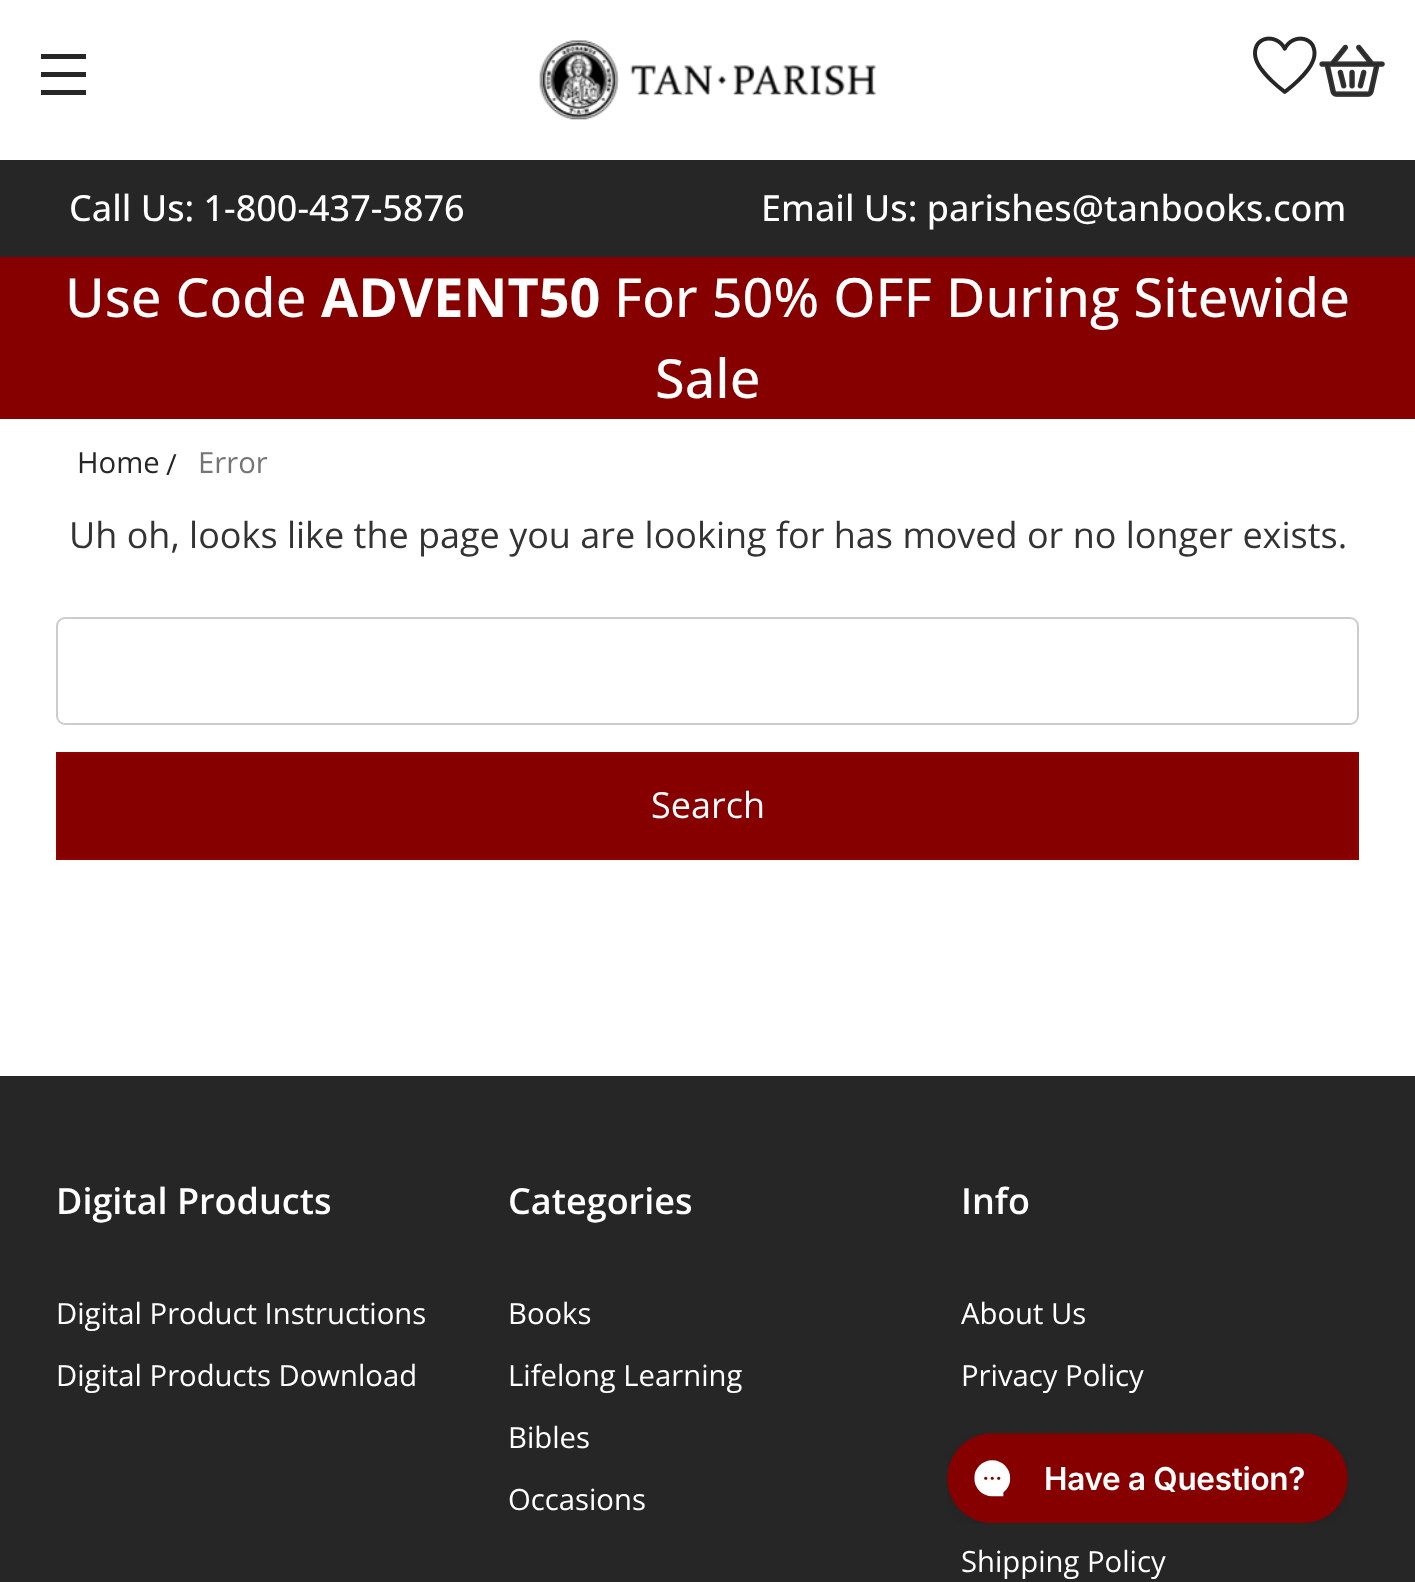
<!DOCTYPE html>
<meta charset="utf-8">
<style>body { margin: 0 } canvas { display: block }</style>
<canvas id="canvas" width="1415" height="1582"></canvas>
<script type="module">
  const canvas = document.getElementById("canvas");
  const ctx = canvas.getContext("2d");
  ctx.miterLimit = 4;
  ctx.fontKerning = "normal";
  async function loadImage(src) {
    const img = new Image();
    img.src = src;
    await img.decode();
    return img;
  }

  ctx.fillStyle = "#ffffff";
  ctx.fillRect(0, 0, 1415, 1582);
  ctx.fillStyle = "#262626";
  ctx.fillRect(41, 72, 45, 5);
  ctx.fillRect(41, 54, 45, 5);
  ctx.fillRect(41, 90, 45, 5);
  ctx.drawImage(await loadImage("img1.png"), 539, 40, 337, 80);
  ctx.drawImage(await loadImage("img2.png"), 1253, 36, 64, 58);
  ctx.drawImage(await loadImage("img3.png"), 1319, 44, 66, 53);
  ctx.fillRect(0, 160, 1415, 97);
  ctx.font = "500 36px Open Sans";
  ctx.fillStyle = "#ffffff";
  ctx.fillText("Call Us: 1-800-437-5876", 69, 221);
  ctx.fillText("Email Us: parishes@tanbooks.com", 761, 221);
  ctx.fillStyle = "#870000";
  ctx.fillRect(0, 257, 1415, 162);
  ctx.font = "500 54px Open Sans";
  ctx.fillStyle = "#ffffff";
  ctx.fillText("Use Code", 65, 317);
  ctx.font = "bold 54px Open Sans";
  ctx.fillText("ADVENT50", 321, 317);
  ctx.font = "500 54px Open Sans";
  ctx.fillText("For 50% OFF During Sitewide", 614, 317);
  ctx.fillText("Sale", 655, 398);
  ctx.font = "29.25px Open Sans";
  ctx.fillStyle = "#262626";
  ctx.fillText("Home", 77, 473);
  ctx.fillText("/", 166, 475);
  ctx.fillStyle = "#757575";
  ctx.fillText("Error", 198, 473);
  ctx.font = "36px Open Sans";
  ctx.fillStyle = "#333333";
  ctx.fillText("Uh oh, looks like the page you are looking for has moved or no longer exists.", 69, 548);
  ctx.beginPath();
  ctx.roundRect(57, 618, 1301, 106, 8);
  ctx.strokeStyle = "#cccccc";
  ctx.lineWidth = 2;
  ctx.stroke();
  ctx.fillStyle = "#870000";
  ctx.beginPath();
  ctx.rect(57, 753, 1301, 106);
  ctx.fill();
  ctx.strokeStyle = "#940000";
  ctx.stroke();
  ctx.fillStyle = "#ffffff";
  ctx.fillText("Search", 651, 818);
  ctx.fillStyle = "#262626";
  ctx.fillRect(0, 1076, 1415, 506);
  ctx.font = "600 36px Open Sans";
  ctx.fillStyle = "#ffffff";
  ctx.fillText("Digital Products", 56, 1214);
  ctx.font = "29.25px Open Sans";
  ctx.fillText("Digital Product Instructions", 56, 1324);
  ctx.fillText("Digital Products Download", 56, 1386);
  ctx.font = "600 36px Open Sans";
  ctx.fillText("Categories", 508, 1214);
  ctx.font = "29.25px Open Sans";
  ctx.fillText("Books", 508, 1324);
  ctx.fillText("Lifelong Learning", 508, 1386);
  ctx.fillText("Bibles", 508, 1448);
  ctx.fillText("Occasions", 508, 1510);
  ctx.font = "600 36px Open Sans";
  ctx.fillText("Info", 961, 1214);
  ctx.font = "29.25px Open Sans";
  ctx.fillText("About Us", 961, 1324);
  ctx.fillText("Privacy Policy", 961, 1386);
  ctx.fillText("Shipping Policy", 961, 1572);
  ctx.drawImage(await loadImage("img4.png"), 947, 1433, 401, 91);
</script>
